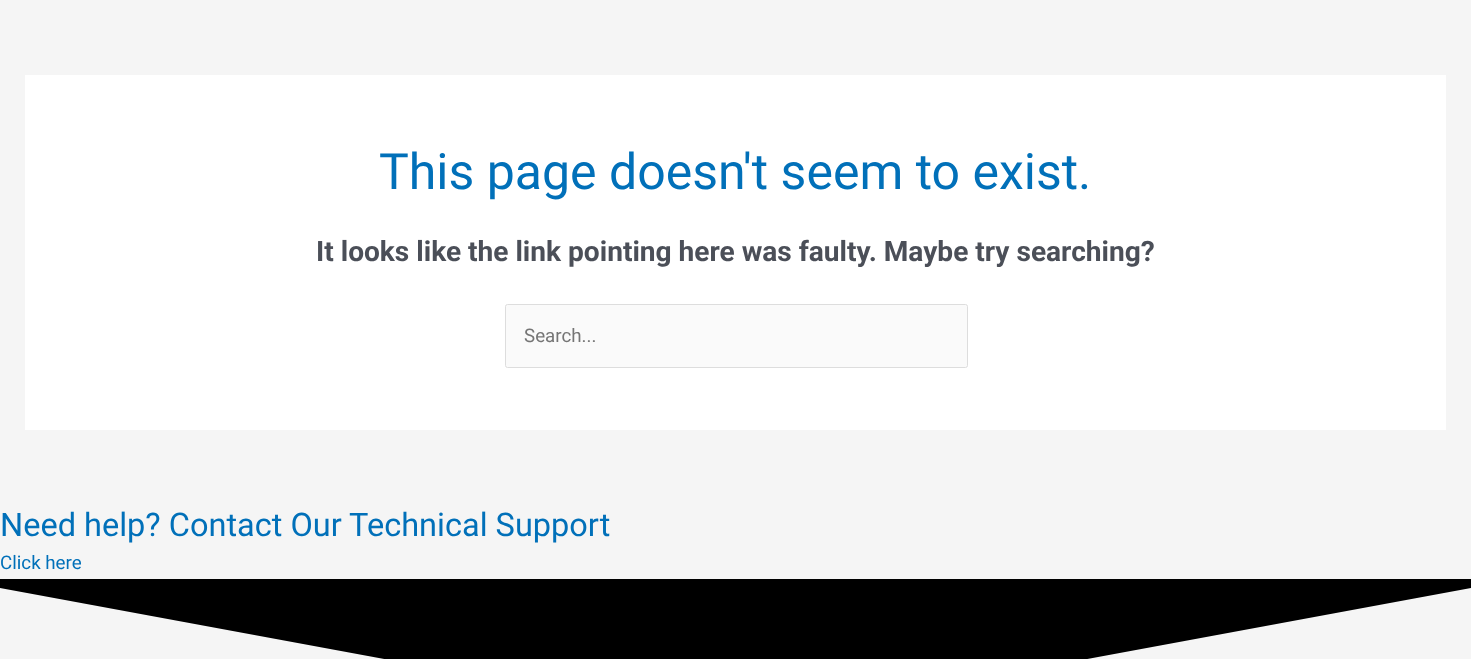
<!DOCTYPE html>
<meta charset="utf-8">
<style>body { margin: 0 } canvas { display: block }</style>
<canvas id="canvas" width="1471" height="659"></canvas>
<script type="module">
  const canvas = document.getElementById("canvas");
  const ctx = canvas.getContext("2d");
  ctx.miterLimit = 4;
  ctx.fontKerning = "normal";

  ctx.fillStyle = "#f5f5f5";
  ctx.fillRect(0, 0, 1471, 659);
  ctx.fillStyle = "#ffffff";
  ctx.fillRect(25, 75, 1421, 355);
  ctx.font = "50px Roboto";
  ctx.fillStyle = "#0170b9";
  ctx.fillText("This page doesn't seem to exist.", 379, 189);
  ctx.font = "bold 28.1px Roboto";
  ctx.fillStyle = "#4b4f58";
  ctx.fillText("It looks like the link pointing here was faulty. Maybe try searching?", 316, 261);
  ctx.fillStyle = "#fafafa";
  ctx.beginPath();
  ctx.roundRect(505.5, 304.5, 462, 63, 2);
  ctx.fill();
  ctx.strokeStyle = "#dddddd";
  ctx.stroke();
  ctx.font = "18.75px Roboto";
  ctx.fillStyle = "#757575";
  ctx.fillText("Search...", 524, 342);
  ctx.font = "32.5px Roboto";
  ctx.fillStyle = "#0170b9";
  ctx.fillText("Need help? Contact Our Technical Support", 0, 536);
  ctx.font = "18.75px Roboto";
  ctx.fillText("Click here", 0, 569);
  ctx.fillStyle = "#000000";
  ctx.beginPath();
  ctx.moveTo(736, 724);
  ctx.lineTo(0, 588);
  ctx.lineTo(0, 579);
  ctx.lineTo(1471, 579);
  ctx.lineTo(1471, 588);
  ctx.closePath();
  ctx.fill();
</script>
